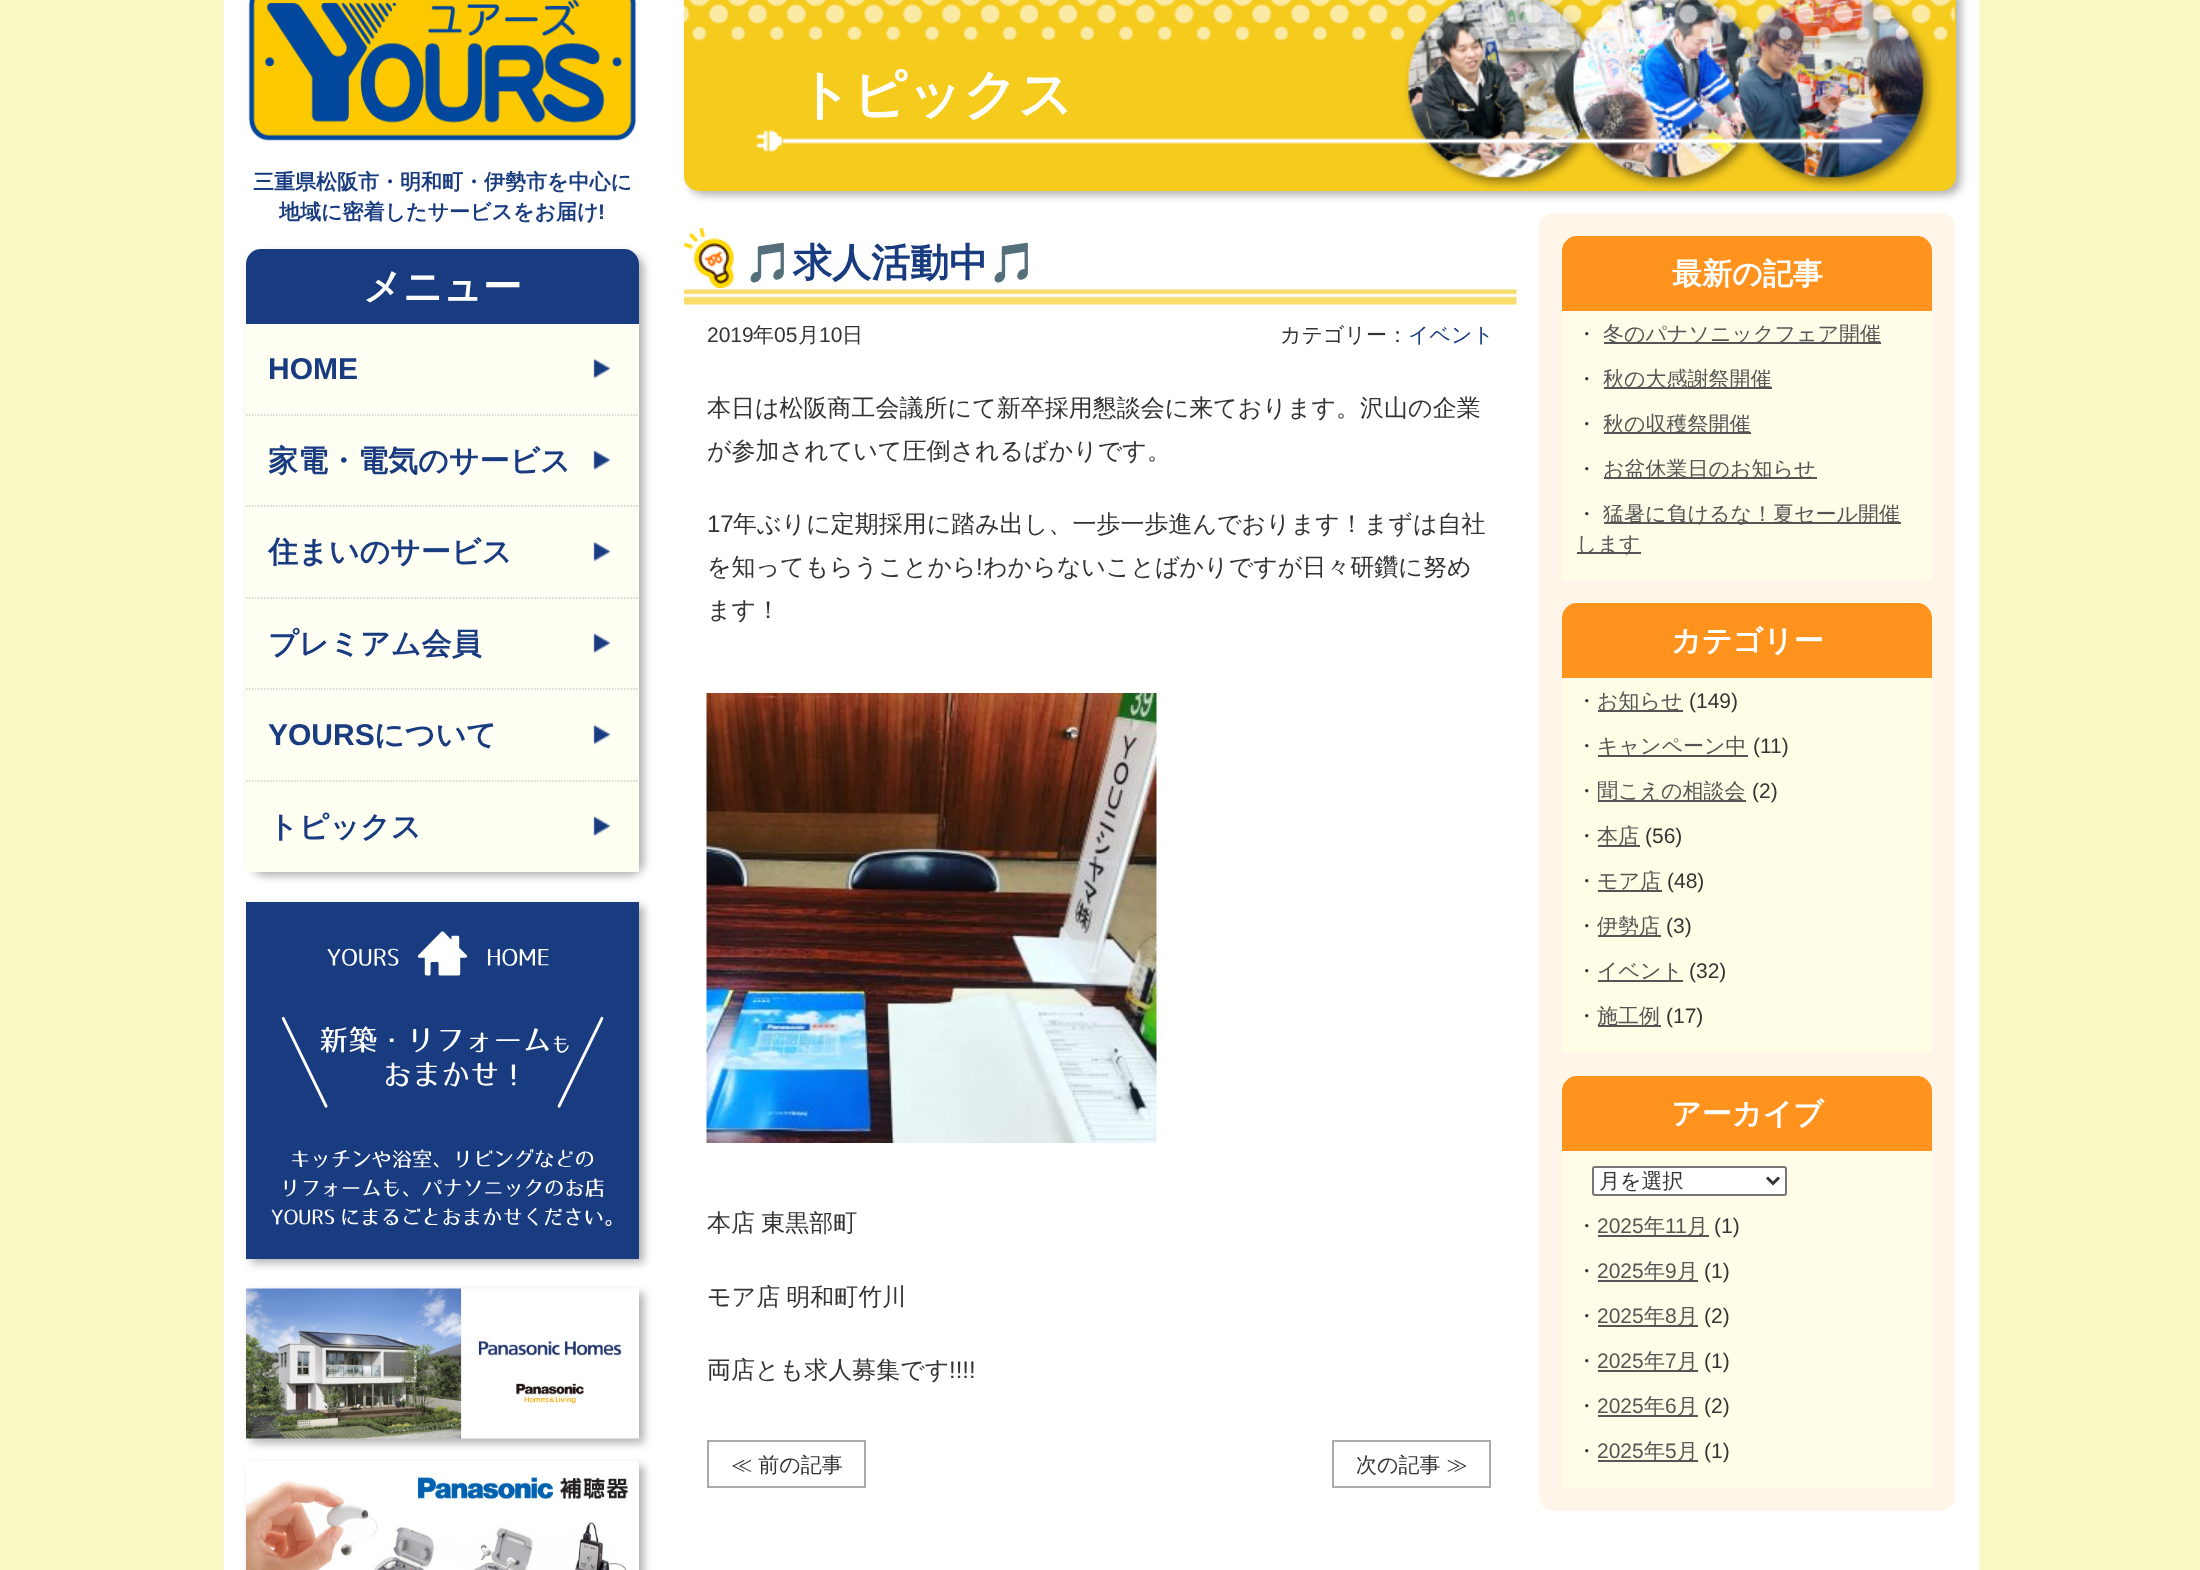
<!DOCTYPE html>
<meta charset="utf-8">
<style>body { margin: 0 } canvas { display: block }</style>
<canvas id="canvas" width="2200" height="1570"></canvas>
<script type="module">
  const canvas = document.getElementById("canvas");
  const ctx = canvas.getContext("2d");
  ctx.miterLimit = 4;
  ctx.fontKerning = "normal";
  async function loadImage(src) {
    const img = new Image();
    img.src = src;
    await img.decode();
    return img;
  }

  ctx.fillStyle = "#f8f8c5";
  ctx.fillRect(0, 0, 2200, 1570);
  ctx.fillStyle = "#ffffff";
  ctx.fillRect(224, 0, 1755, 1570);
  ctx.drawImage(await loadImage("img1.png"), 248, 0, 389, 141);
  ctx.font = "bold 21px WenQuanYi Zen Hei";
  ctx.fillStyle = "#193b80";
  ctx.fillText("三重県松阪市・明和町・伊勢市を中心に", 253, 189);
  ctx.fillText("地域に密着したサービスをお届け", 279, 219);
  ctx.font = "bold 21px Liberation Sans";
  ctx.fillText("!", 598, 219);
  ctx.save();
  ctx.beginPath();
  ctx.moveTo(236, 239);
  ctx.lineTo(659, 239);
  ctx.lineTo(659, 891);
  ctx.lineTo(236, 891);
  ctx.closePath();
  ctx.moveTo(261, 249);
  ctx.lineTo(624, 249);
  ctx.bezierCurveTo(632.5, 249, 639, 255.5, 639, 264);
  ctx.lineTo(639, 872);
  ctx.lineTo(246, 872);
  ctx.lineTo(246, 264);
  ctx.bezierCurveTo(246, 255.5, 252.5, 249, 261, 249);
  ctx.closePath();
  ctx.clip("evenodd");
  ctx.fillStyle = "rgba(0, 0, 0, 0.3)";
  ctx.filter = "blur(4.5px)";
  ctx.beginPath();
  ctx.roundRect(251, 254, 393, 622, 15);
  ctx.fill();
  ctx.filter = "none";
  ctx.restore();
  ctx.beginPath();
  ctx.roundRect(246, 249, 393, 75, [15, 15, 0, 0]);
  ctx.fill();
  ctx.font = "bold 39px WenQuanYi Zen Hei";
  ctx.fillStyle = "#ffffff";
  ctx.fillText("メニュー", 363, 300);
  ctx.fillStyle = "#fffff3";
  ctx.fillRect(246, 324, 393, 456);
  ctx.drawImage(await loadImage("img2.png"), 593, 358, 18, 21);
  ctx.font = "bold 30px Liberation Sans";
  ctx.fillStyle = "#193b80";
  ctx.fillText("HOME", 268, 379);
  ctx.drawImage(await loadImage("img3.png"), 593, 450, 18, 20);
  ctx.beginPath();
  ctx.moveTo(246, 415);
  ctx.lineTo(639, 415);
  ctx.strokeStyle = "#cccccc";
  ctx.lineWidth = 1.5;
  ctx.setLineDash([1.5, 1.5]);
  ctx.stroke();
  ctx.font = "bold 30px WenQuanYi Zen Hei";
  ctx.fillText("家電・電気のサービス", 268, 471);
  ctx.drawImage(await loadImage("img2.png"), 593, 541, 18, 21);
  ctx.beginPath();
  ctx.moveTo(246, 506);
  ctx.lineTo(639, 506);
  ctx.stroke();
  ctx.fillText("住まいのサービス", 268, 562);
  ctx.drawImage(await loadImage("img3.png"), 593, 633, 18, 20);
  ctx.beginPath();
  ctx.moveTo(246, 598);
  ctx.lineTo(639, 598);
  ctx.stroke();
  ctx.fillText("プレミアム会員", 268, 654);
  ctx.drawImage(await loadImage("img2.png"), 593, 724, 18, 21);
  ctx.beginPath();
  ctx.moveTo(246, 689);
  ctx.lineTo(639, 689);
  ctx.stroke();
  ctx.font = "bold 30px Liberation Sans";
  ctx.fillText("YOURS", 268, 745);
  ctx.font = "bold 30px WenQuanYi Zen Hei";
  ctx.fillText("について", 374, 745);
  ctx.fillStyle = "rgba(255, 255, 230, 0.5)";
  ctx.fillRect(246, 780, 393, 92);
  ctx.drawImage(await loadImage("img4.png"), 593, 816, 18, 20);
  ctx.beginPath();
  ctx.moveTo(246, 781);
  ctx.lineTo(639, 781);
  ctx.stroke();
  ctx.fillStyle = "#193b80";
  ctx.fillText("トピックス", 268, 837);
  ctx.fillStyle = "rgba(0, 0, 0, 0.3)";
  ctx.filter = "blur(4.5px)";
  ctx.beginPath();
  ctx.rect(251, 906, 393, 357);
  ctx.fill();
  ctx.filter = "none";
  ctx.fillStyle = "#193b80";
  ctx.fillRect(246, 902, 393, 357);
  ctx.drawImage(await loadImage("img5.png"), 271, 931, 341, 295);
  ctx.fillStyle = "rgba(0, 0, 0, 0.3)";
  ctx.filter = "blur(4.5px)";
  ctx.beginPath();
  ctx.rect(251, 1293, 393, 150);
  ctx.fill();
  ctx.filter = "none";
  ctx.drawImage(await loadImage("img6.png"), 246, 1288, 393, 151);
  ctx.save();
  ctx.beginPath();
  ctx.moveTo(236, 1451);
  ctx.lineTo(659, 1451);
  ctx.lineTo(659, 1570);
  ctx.lineTo(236, 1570);
  ctx.closePath();
  ctx.moveTo(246, 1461);
  ctx.lineTo(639, 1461);
  ctx.lineTo(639, 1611);
  ctx.lineTo(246, 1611);
  ctx.closePath();
  ctx.clip("evenodd");
  ctx.filter = "blur(4.5px)";
  ctx.beginPath();
  ctx.rect(251, 1466, 393, 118);
  ctx.fill();
  ctx.filter = "none";
  ctx.restore();
  ctx.drawImage(await loadImage("img7.png"), 246, 1473, 382, 97);
  ctx.filter = "blur(4.5px)";
  ctx.beginPath();
  ctx.roundRect(689, -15, 1272, 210, 15);
  ctx.fill();
  ctx.filter = "none";
  ctx.fillStyle = "#f5cb1d";
  ctx.beginPath();
  ctx.roundRect(684, -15, 1272, 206, 15);
  ctx.fill();
  ctx.drawImage(await loadImage("img8.png"), 684, 0, 1271, 189);
  ctx.font = "bold 54px WenQuanYi Zen Hei";
  ctx.fillStyle = "#ffffff";
  ctx.fillText("トピックス", 797, 113);
  ctx.drawImage(await loadImage("img9.png"), 684, 228, 50, 60);
  ctx.drawImage(await loadImage("img10.png"), 684, 289, 833, 16);
  ctx.font = "bold 39px Noto Color Emoji";
  ctx.fillStyle = "#193b80";
  ctx.fillText("🎵", 744, 276);
  ctx.font = "bold 39px WenQuanYi Zen Hei";
  ctx.fillText("求人活動中", 793, 276);
  ctx.font = "bold 39px Noto Color Emoji";
  ctx.fillText("🎵", 988, 276);
  ctx.font = "21px Liberation Sans";
  ctx.fillStyle = "#333333";
  ctx.fillText("2019", 707, 342);
  ctx.font = "500 21px WenQuanYi Zen Hei";
  ctx.fillText("年", 753, 342);
  ctx.font = "21px Liberation Sans";
  ctx.fillText("05", 774, 342);
  ctx.font = "500 21px WenQuanYi Zen Hei";
  ctx.fillText("月", 798, 342);
  ctx.font = "21px Liberation Sans";
  ctx.fillText("10", 819, 342);
  ctx.font = "500 21px WenQuanYi Zen Hei";
  ctx.fillText("日", 842, 342);
  ctx.fillText("カテゴリー：", 1280, 342);
  ctx.fillStyle = "#193b80";
  ctx.fillText("イベント", 1408, 342);
  ctx.font = "500 24px WenQuanYi Zen Hei";
  ctx.fillStyle = "#333333";
  ctx.fillText("本日は松阪商工会議所にて新卒採用懇談会に来ております。沢山の企業", 707, 416);
  ctx.fillText("が参加されていて圧倒されるばかりです。", 707, 459);
  ctx.font = "24px Liberation Sans";
  ctx.fillText("17", 707, 532);
  ctx.font = "500 24px WenQuanYi Zen Hei";
  ctx.fillText("年ぶりに定期採用に踏み出し、一歩一歩進んでおります！まずは自社", 733, 532);
  ctx.fillText("を知ってもらうことから", 707, 575);
  ctx.font = "24px Liberation Sans";
  ctx.fillText("!", 976, 575);
  ctx.font = "500 24px WenQuanYi Zen Hei";
  ctx.fillText("わからないことばかりですが日々研鑽に努め", 983, 575);
  ctx.fillText("ます！", 707, 618);
  ctx.drawImage(await loadImage("img11.png"), 706, 693, 451, 450);
  ctx.wordSpacing = "-1px";
  ctx.fillText("本店 東黒部町", 707, 1231);
  ctx.fillText("モア店 明和町竹川", 707, 1305);
  ctx.wordSpacing = "0px";
  ctx.fillText("両店とも求人募集です", 707, 1378);
  ctx.font = "24px Liberation Sans";
  ctx.fillText("!!!!", 949, 1378);
  ctx.strokeStyle = "#aaaaaa";
  ctx.lineWidth = 2;
  ctx.setLineDash([]);
  ctx.strokeRect(708, 1441, 157, 46);
  ctx.font = "500 21px WenQuanYi Zen Hei";
  ctx.fillText("≪ 前の記事", 731, 1472);
  ctx.strokeRect(1333, 1441, 157, 46);
  ctx.fillText("次の記事 ≫", 1356, 1472);
  ctx.fillStyle = "#fff5e9";
  ctx.beginPath();
  ctx.roundRect(1539, 213, 416, 1298, 15);
  ctx.fill();
  ctx.fillStyle = "#fffde7";
  ctx.beginPath();
  ctx.roundRect(1562, 236, 370, 345, [15, 15, 0, 0]);
  ctx.fill();
  ctx.fillStyle = "#ff931e";
  ctx.beginPath();
  ctx.roundRect(1562, 236, 370, 75, [15, 15, 0, 0]);
  ctx.fill();
  ctx.font = "bold 30px WenQuanYi Zen Hei";
  ctx.fillStyle = "#ffffff";
  ctx.fillText("最新の記事", 1672, 284);
  ctx.font = "500 21px WenQuanYi Zen Hei";
  ctx.fillStyle = "#333333";
  ctx.fillText("・", 1576, 341);
  ctx.fillStyle = "#555555";
  ctx.fillRect(1604, 342, 277, 2);
  ctx.fillText("冬のパナソニックフェア開催", 1603, 341);
  ctx.fillStyle = "#333333";
  ctx.fillText("・", 1576, 386);
  ctx.fillStyle = "#555555";
  ctx.fillRect(1604, 387, 168, 2);
  ctx.fillText("秋の大感謝祭開催", 1603, 386);
  ctx.fillStyle = "#333333";
  ctx.fillText("・", 1576, 431);
  ctx.fillStyle = "#555555";
  ctx.fillRect(1604, 432, 147, 2);
  ctx.fillText("秋の収穫祭開催", 1603, 431);
  ctx.fillStyle = "#333333";
  ctx.fillText("・", 1576, 476);
  ctx.fillStyle = "#555555";
  ctx.fillRect(1604, 477, 213, 2);
  ctx.fillText("お盆休業日のお知らせ", 1603, 476);
  ctx.fillStyle = "#333333";
  ctx.fillText("・", 1576, 521);
  ctx.fillStyle = "#555555";
  ctx.fillRect(1604, 522, 297, 2);
  ctx.fillText("猛暑に負けるな！夏セール開催", 1603, 521);
  ctx.fillRect(1577, 552, 64, 2);
  ctx.fillText("します", 1576, 551);
  ctx.fillStyle = "#fffde6";
  ctx.beginPath();
  ctx.roundRect(1562, 603, 370, 450, [15, 15, 0, 0]);
  ctx.fill();
  ctx.fillStyle = "#ff931e";
  ctx.beginPath();
  ctx.roundRect(1562, 603, 370, 75, [15, 15, 0, 0]);
  ctx.fill();
  ctx.font = "bold 30px WenQuanYi Zen Hei";
  ctx.fillStyle = "#ffffff";
  ctx.fillText("カテゴリー", 1671, 651);
  ctx.font = "500 21px WenQuanYi Zen Hei";
  ctx.fillStyle = "#333333";
  ctx.fillText("・", 1576, 708);
  ctx.fillStyle = "#555555";
  ctx.fillRect(1598, 710, 85, 2);
  ctx.fillText("お知らせ", 1597, 708);
  ctx.font = "21px Liberation Sans";
  ctx.fillStyle = "#333333";
  ctx.fillText("(149)", 1689, 708);
  ctx.font = "500 21px WenQuanYi Zen Hei";
  ctx.fillText("・", 1576, 753);
  ctx.fillStyle = "#555555";
  ctx.fillRect(1598, 755, 150, 2);
  ctx.fillText("キャンペーン中", 1597, 753);
  ctx.font = "21px Liberation Sans";
  ctx.fillStyle = "#333333";
  ctx.fillText("(11)", 1753, 753);
  ctx.font = "500 21px WenQuanYi Zen Hei";
  ctx.fillText("・", 1576, 798);
  ctx.fillStyle = "#555555";
  ctx.fillRect(1598, 800, 148, 2);
  ctx.fillText("聞こえの相談会", 1597, 798);
  ctx.font = "21px Liberation Sans";
  ctx.fillStyle = "#333333";
  ctx.fillText("(2)", 1752, 798);
  ctx.font = "500 21px WenQuanYi Zen Hei";
  ctx.fillText("・", 1576, 843);
  ctx.fillStyle = "#555555";
  ctx.fillRect(1598, 845, 42, 2);
  ctx.fillText("本店", 1597, 843);
  ctx.font = "21px Liberation Sans";
  ctx.fillStyle = "#333333";
  ctx.fillText("(56)", 1645, 843);
  ctx.font = "500 21px WenQuanYi Zen Hei";
  ctx.fillText("・", 1576, 888);
  ctx.fillStyle = "#555555";
  ctx.fillRect(1598, 890, 64, 2);
  ctx.fillText("モア店", 1597, 888);
  ctx.font = "21px Liberation Sans";
  ctx.fillStyle = "#333333";
  ctx.fillText("(48)", 1667, 888);
  ctx.font = "500 21px WenQuanYi Zen Hei";
  ctx.fillText("・", 1576, 933);
  ctx.fillStyle = "#555555";
  ctx.fillRect(1598, 935, 63, 2);
  ctx.fillText("伊勢店", 1597, 933);
  ctx.font = "21px Liberation Sans";
  ctx.fillStyle = "#333333";
  ctx.fillText("(3)", 1666, 933);
  ctx.font = "500 21px WenQuanYi Zen Hei";
  ctx.fillText("・", 1576, 978);
  ctx.fillStyle = "#555555";
  ctx.fillRect(1598, 980, 85, 2);
  ctx.fillText("イベント", 1597, 978);
  ctx.font = "21px Liberation Sans";
  ctx.fillStyle = "#333333";
  ctx.fillText("(32)", 1689, 978);
  ctx.font = "500 21px WenQuanYi Zen Hei";
  ctx.fillText("・", 1576, 1023);
  ctx.fillStyle = "#555555";
  ctx.fillRect(1598, 1025, 63, 2);
  ctx.fillText("施工例", 1597, 1023);
  ctx.font = "21px Liberation Sans";
  ctx.fillStyle = "#333333";
  ctx.fillText("(17)", 1666, 1023);
  ctx.fillStyle = "#fffde7";
  ctx.beginPath();
  ctx.roundRect(1562, 1076, 370, 127, [15, 15, 0, 0]);
  ctx.fill();
  ctx.fillStyle = "#ff931e";
  ctx.beginPath();
  ctx.roundRect(1562, 1076, 370, 75, [15, 15, 0, 0]);
  ctx.fill();
  ctx.font = "bold 30px WenQuanYi Zen Hei";
  ctx.fillStyle = "#ffffff";
  ctx.fillText("アーカイブ", 1671, 1124);
  ctx.beginPath();
  ctx.roundRect(1593, 1167, 193, 28, 2);
  ctx.fill();
  ctx.strokeStyle = "#767676";
  ctx.stroke();
  ctx.beginPath();
  ctx.moveTo(1767, 1177.5);
  ctx.lineTo(1773, 1183.5);
  ctx.lineTo(1779, 1177.5);
  ctx.strokeStyle = "#333333";
  ctx.lineWidth = 3;
  ctx.stroke();
  ctx.font = "500 21px WenQuanYi Zen Hei";
  ctx.fillStyle = "#333333";
  ctx.fillText("月を選択", 1599, 1188);
  ctx.fillStyle = "#fffde7";
  ctx.fillRect(1562, 1203, 370, 285);
  ctx.fillStyle = "#333333";
  ctx.fillText("・", 1576, 1233);
  ctx.font = "21px Liberation Sans";
  ctx.fillStyle = "#555555";
  ctx.fillText("2025", 1597, 1233);
  ctx.fillRect(1598, 1235, 111, 2);
  ctx.font = "500 21px WenQuanYi Zen Hei";
  ctx.fillText("年", 1644, 1233);
  ctx.font = "21px Liberation Sans";
  ctx.fillText("11", 1665, 1233);
  ctx.font = "500 21px WenQuanYi Zen Hei";
  ctx.fillText("月", 1687, 1233);
  ctx.font = "21px Liberation Sans";
  ctx.fillStyle = "#333333";
  ctx.fillText("(1)", 1714, 1233);
  ctx.font = "500 21px WenQuanYi Zen Hei";
  ctx.fillText("・", 1576, 1278);
  ctx.font = "21px Liberation Sans";
  ctx.fillStyle = "#555555";
  ctx.fillText("2025", 1597, 1278);
  ctx.fillRect(1598, 1280, 100, 2);
  ctx.font = "500 21px WenQuanYi Zen Hei";
  ctx.fillText("年", 1644, 1278);
  ctx.font = "21px Liberation Sans";
  ctx.fillText("9", 1665, 1278);
  ctx.font = "500 21px WenQuanYi Zen Hei";
  ctx.fillText("月", 1677, 1278);
  ctx.font = "21px Liberation Sans";
  ctx.fillStyle = "#333333";
  ctx.fillText("(1)", 1704, 1278);
  ctx.font = "500 21px WenQuanYi Zen Hei";
  ctx.fillText("・", 1576, 1323);
  ctx.font = "21px Liberation Sans";
  ctx.fillStyle = "#555555";
  ctx.fillText("2025", 1597, 1323);
  ctx.fillRect(1598, 1325, 100, 2);
  ctx.font = "500 21px WenQuanYi Zen Hei";
  ctx.fillText("年", 1644, 1323);
  ctx.font = "21px Liberation Sans";
  ctx.fillText("8", 1665, 1323);
  ctx.font = "500 21px WenQuanYi Zen Hei";
  ctx.fillText("月", 1677, 1323);
  ctx.font = "21px Liberation Sans";
  ctx.fillStyle = "#333333";
  ctx.fillText("(2)", 1704, 1323);
  ctx.font = "500 21px WenQuanYi Zen Hei";
  ctx.fillText("・", 1576, 1368);
  ctx.font = "21px Liberation Sans";
  ctx.fillStyle = "#555555";
  ctx.fillText("2025", 1597, 1368);
  ctx.fillRect(1598, 1370, 100, 2);
  ctx.font = "500 21px WenQuanYi Zen Hei";
  ctx.fillText("年", 1644, 1368);
  ctx.font = "21px Liberation Sans";
  ctx.fillText("7", 1665, 1368);
  ctx.font = "500 21px WenQuanYi Zen Hei";
  ctx.fillText("月", 1677, 1368);
  ctx.font = "21px Liberation Sans";
  ctx.fillStyle = "#333333";
  ctx.fillText("(1)", 1704, 1368);
  ctx.font = "500 21px WenQuanYi Zen Hei";
  ctx.fillText("・", 1576, 1413);
  ctx.font = "21px Liberation Sans";
  ctx.fillStyle = "#555555";
  ctx.fillText("2025", 1597, 1413);
  ctx.fillRect(1598, 1415, 100, 2);
  ctx.font = "500 21px WenQuanYi Zen Hei";
  ctx.fillText("年", 1644, 1413);
  ctx.font = "21px Liberation Sans";
  ctx.fillText("6", 1665, 1413);
  ctx.font = "500 21px WenQuanYi Zen Hei";
  ctx.fillText("月", 1677, 1413);
  ctx.font = "21px Liberation Sans";
  ctx.fillStyle = "#333333";
  ctx.fillText("(2)", 1704, 1413);
  ctx.font = "500 21px WenQuanYi Zen Hei";
  ctx.fillText("・", 1576, 1458);
  ctx.font = "21px Liberation Sans";
  ctx.fillStyle = "#555555";
  ctx.fillText("2025", 1597, 1458);
  ctx.fillRect(1598, 1460, 100, 2);
  ctx.font = "500 21px WenQuanYi Zen Hei";
  ctx.fillText("年", 1644, 1458);
  ctx.font = "21px Liberation Sans";
  ctx.fillText("5", 1665, 1458);
  ctx.font = "500 21px WenQuanYi Zen Hei";
  ctx.fillText("月", 1677, 1458);
  ctx.font = "21px Liberation Sans";
  ctx.fillStyle = "#333333";
  ctx.fillText("(1)", 1704, 1458);
</script>
